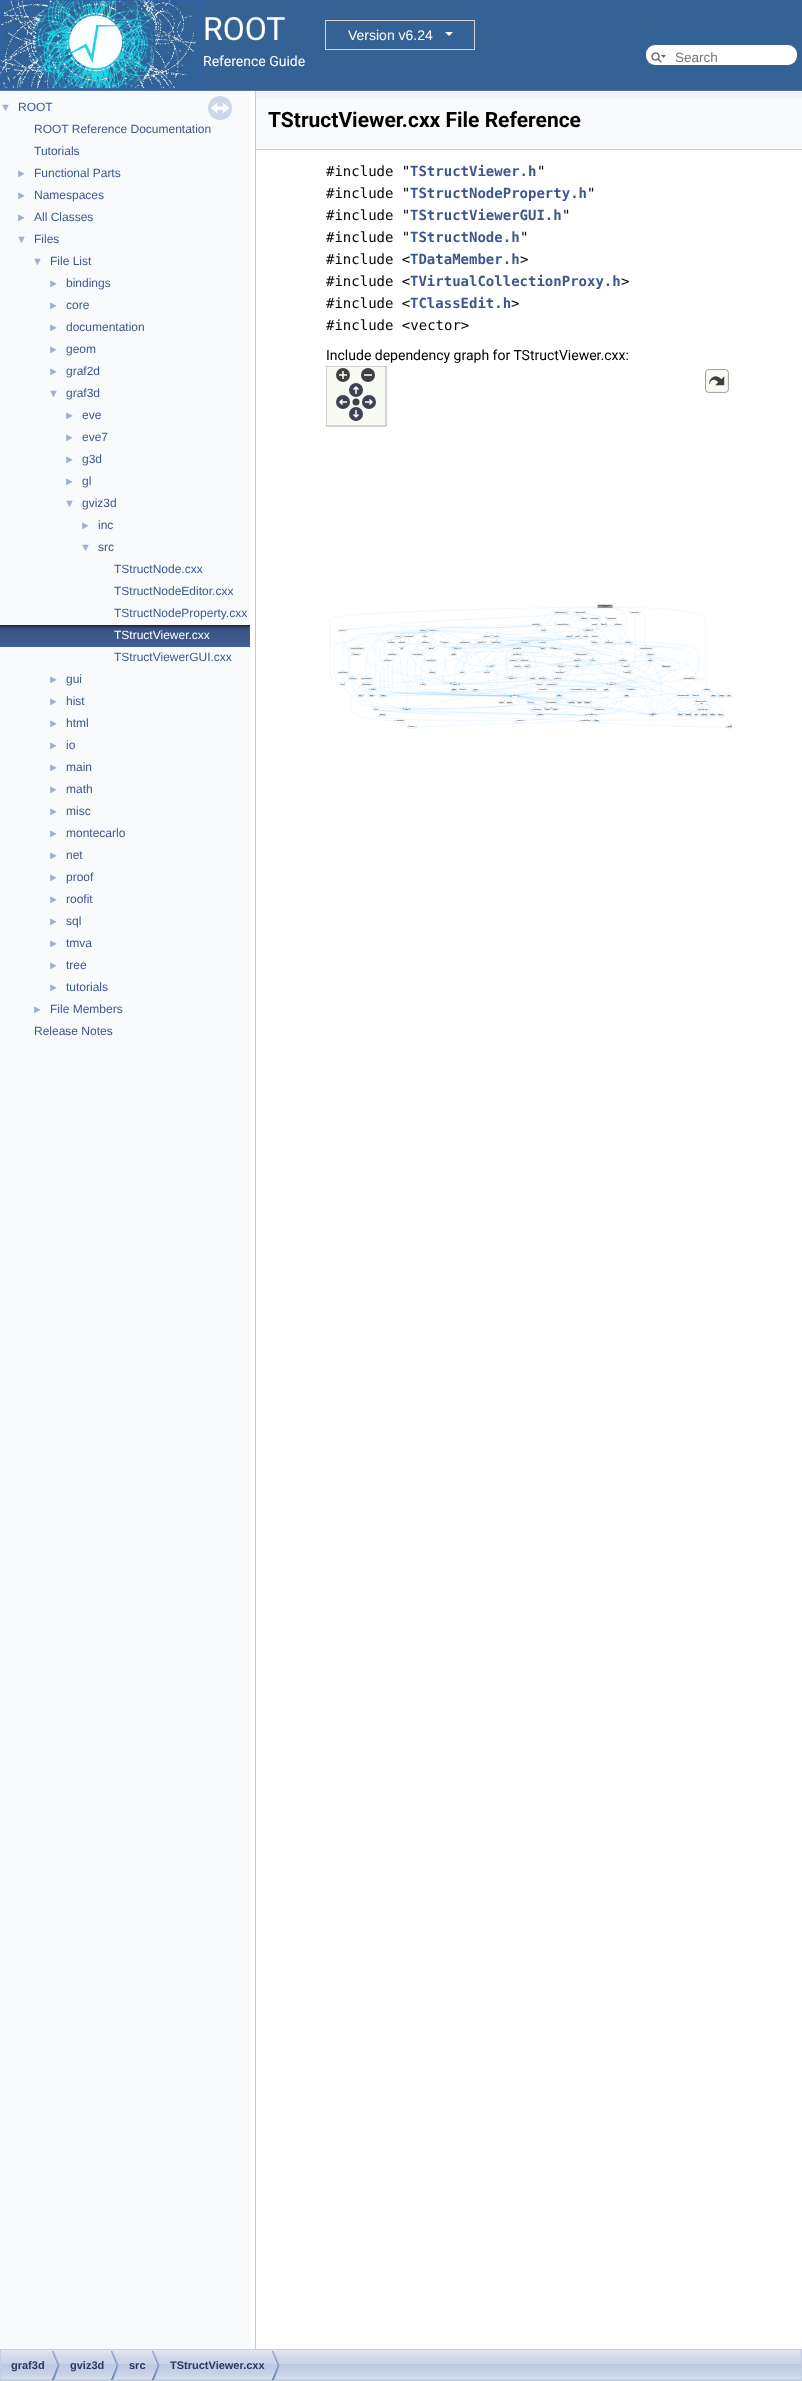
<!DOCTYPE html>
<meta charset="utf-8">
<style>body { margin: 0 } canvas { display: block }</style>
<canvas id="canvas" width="802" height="2381"></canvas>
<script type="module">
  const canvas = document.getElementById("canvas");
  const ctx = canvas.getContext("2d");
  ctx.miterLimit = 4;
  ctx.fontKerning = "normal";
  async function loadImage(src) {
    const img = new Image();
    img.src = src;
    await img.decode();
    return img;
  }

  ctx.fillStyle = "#ffffff";
  ctx.fillRect(0, 0, 802, 2381);
  ctx.fillStyle = "#5373b4";
  ctx.fillRect(0, 90, 802, 1);
  ctx.fillStyle = "#346295";
  ctx.fillRect(203, 0, 599, 90);
  ctx.drawImage(await loadImage("img1.png"), 0, 0, 203, 90);
  ctx.font = "32px Roboto";
  ctx.fillStyle = "#ffffff";
  ctx.fillText("ROOT", 203, 40);
  ctx.strokeStyle = "#d3d3d3";
  ctx.strokeRect(325.5, 20.5, 149, 29);
  ctx.font = "14px Liberation Sans";
  ctx.fillText("Version v6.24", 348, 40);
  ctx.beginPath();
  ctx.moveTo(445, 32);
  ctx.lineTo(453, 32);
  ctx.lineTo(449, 36);
  ctx.closePath();
  ctx.fill();
  ctx.font = "14px Roboto";
  ctx.fillText("Reference Guide", 203, 66);
  ctx.beginPath();
  ctx.roundRect(646, 45, 151, 20, 9);
  ctx.fill();
  ctx.drawImage(await loadImage("img2.png"), 651, 52, 15, 11);
  ctx.font = "13.5px Liberation Sans";
  ctx.fillStyle = "#757575";
  ctx.fillText("Search", 675, 62);
  ctx.fillStyle = "#f9fafc";
  ctx.fillRect(0, 91, 250, 2258);
  ctx.drawImage(await loadImage("img3.png"), 208, 96, 24, 24);
  ctx.font = "11px Liberation Sans";
  ctx.fillStyle = "#9cafd4";
  ctx.fillText("▼", 0, 111);
  ctx.font = "12px Liberation Sans";
  ctx.fillStyle = "#3d578c";
  ctx.fillText("ROOT", 18, 111);
  ctx.fillText("ROOT Reference Documentation", 34, 133);
  ctx.fillText("Tutorials", 34, 155);
  ctx.font = "11px Liberation Sans";
  ctx.fillStyle = "#9cafd4";
  ctx.fillText("►", 16, 177);
  ctx.font = "12px Liberation Sans";
  ctx.fillStyle = "#3d578c";
  ctx.fillText("Functional Parts", 34, 177);
  ctx.font = "11px Liberation Sans";
  ctx.fillStyle = "#9cafd4";
  ctx.fillText("►", 16, 199);
  ctx.font = "12px Liberation Sans";
  ctx.fillStyle = "#3d578c";
  ctx.fillText("Namespaces", 34, 199);
  ctx.font = "11px Liberation Sans";
  ctx.fillStyle = "#9cafd4";
  ctx.fillText("►", 16, 221);
  ctx.font = "12px Liberation Sans";
  ctx.fillStyle = "#3d578c";
  ctx.fillText("All Classes", 34, 221);
  ctx.font = "11px Liberation Sans";
  ctx.fillStyle = "#9cafd4";
  ctx.fillText("▼", 16, 243);
  ctx.font = "12px Liberation Sans";
  ctx.fillStyle = "#3d578c";
  ctx.fillText("Files", 34, 243);
  ctx.font = "11px Liberation Sans";
  ctx.fillStyle = "#9cafd4";
  ctx.fillText("▼", 32, 265);
  ctx.font = "12px Liberation Sans";
  ctx.fillStyle = "#3d578c";
  ctx.fillText("File List", 50, 265);
  ctx.font = "11px Liberation Sans";
  ctx.fillStyle = "#9cafd4";
  ctx.fillText("►", 48, 287);
  ctx.font = "12px Liberation Sans";
  ctx.fillStyle = "#3d578c";
  ctx.fillText("bindings", 66, 287);
  ctx.font = "11px Liberation Sans";
  ctx.fillStyle = "#9cafd4";
  ctx.fillText("►", 48, 309);
  ctx.font = "12px Liberation Sans";
  ctx.fillStyle = "#3d578c";
  ctx.fillText("core", 66, 309);
  ctx.font = "11px Liberation Sans";
  ctx.fillStyle = "#9cafd4";
  ctx.fillText("►", 48, 331);
  ctx.font = "12px Liberation Sans";
  ctx.fillStyle = "#3d578c";
  ctx.fillText("documentation", 66, 331);
  ctx.font = "11px Liberation Sans";
  ctx.fillStyle = "#9cafd4";
  ctx.fillText("►", 48, 353);
  ctx.font = "12px Liberation Sans";
  ctx.fillStyle = "#3d578c";
  ctx.fillText("geom", 66, 353);
  ctx.font = "11px Liberation Sans";
  ctx.fillStyle = "#9cafd4";
  ctx.fillText("►", 48, 375);
  ctx.font = "12px Liberation Sans";
  ctx.fillStyle = "#3d578c";
  ctx.fillText("graf2d", 66, 375);
  ctx.font = "11px Liberation Sans";
  ctx.fillStyle = "#9cafd4";
  ctx.fillText("▼", 48, 397);
  ctx.font = "12px Liberation Sans";
  ctx.fillStyle = "#3d578c";
  ctx.fillText("graf3d", 66, 397);
  ctx.font = "11px Liberation Sans";
  ctx.fillStyle = "#9cafd4";
  ctx.fillText("►", 64, 419);
  ctx.font = "12px Liberation Sans";
  ctx.fillStyle = "#3d578c";
  ctx.fillText("eve", 82, 419);
  ctx.font = "11px Liberation Sans";
  ctx.fillStyle = "#9cafd4";
  ctx.fillText("►", 64, 441);
  ctx.font = "12px Liberation Sans";
  ctx.fillStyle = "#3d578c";
  ctx.fillText("eve7", 82, 441);
  ctx.font = "11px Liberation Sans";
  ctx.fillStyle = "#9cafd4";
  ctx.fillText("►", 64, 463);
  ctx.font = "12px Liberation Sans";
  ctx.fillStyle = "#3d578c";
  ctx.fillText("g3d", 82, 463);
  ctx.font = "11px Liberation Sans";
  ctx.fillStyle = "#9cafd4";
  ctx.fillText("►", 64, 485);
  ctx.font = "12px Liberation Sans";
  ctx.fillStyle = "#3d578c";
  ctx.fillText("gl", 82, 485);
  ctx.font = "11px Liberation Sans";
  ctx.fillStyle = "#9cafd4";
  ctx.fillText("▼", 64, 507);
  ctx.font = "12px Liberation Sans";
  ctx.fillStyle = "#3d578c";
  ctx.fillText("gviz3d", 82, 507);
  ctx.font = "11px Liberation Sans";
  ctx.fillStyle = "#9cafd4";
  ctx.fillText("►", 80, 529);
  ctx.font = "12px Liberation Sans";
  ctx.fillStyle = "#3d578c";
  ctx.fillText("inc", 98, 529);
  ctx.font = "11px Liberation Sans";
  ctx.fillStyle = "#9cafd4";
  ctx.fillText("▼", 80, 551);
  ctx.font = "12px Liberation Sans";
  ctx.fillStyle = "#3d578c";
  ctx.fillText("src", 98, 551);
  ctx.fillText("TStructNode.cxx", 114, 573);
  ctx.fillText("TStructNodeEditor.cxx", 114, 595);
  ctx.fillText("TStructNodeProperty.cxx", 114, 617);
  ctx.drawImage(await loadImage("img4.png"), 0, 625, 250, 22);
  ctx.fillStyle = "#ffffff";
  ctx.fillText("TStructViewer.cxx", 114, 639);
  ctx.fillStyle = "#3d578c";
  ctx.fillText("TStructViewerGUI.cxx", 114, 661);
  ctx.font = "11px Liberation Sans";
  ctx.fillStyle = "#9cafd4";
  ctx.fillText("►", 48, 683);
  ctx.font = "12px Liberation Sans";
  ctx.fillStyle = "#3d578c";
  ctx.fillText("gui", 66, 683);
  ctx.font = "11px Liberation Sans";
  ctx.fillStyle = "#9cafd4";
  ctx.fillText("►", 48, 705);
  ctx.font = "12px Liberation Sans";
  ctx.fillStyle = "#3d578c";
  ctx.fillText("hist", 66, 705);
  ctx.font = "11px Liberation Sans";
  ctx.fillStyle = "#9cafd4";
  ctx.fillText("►", 48, 727);
  ctx.font = "12px Liberation Sans";
  ctx.fillStyle = "#3d578c";
  ctx.fillText("html", 66, 727);
  ctx.font = "11px Liberation Sans";
  ctx.fillStyle = "#9cafd4";
  ctx.fillText("►", 48, 749);
  ctx.font = "12px Liberation Sans";
  ctx.fillStyle = "#3d578c";
  ctx.fillText("io", 66, 749);
  ctx.font = "11px Liberation Sans";
  ctx.fillStyle = "#9cafd4";
  ctx.fillText("►", 48, 771);
  ctx.font = "12px Liberation Sans";
  ctx.fillStyle = "#3d578c";
  ctx.fillText("main", 66, 771);
  ctx.font = "11px Liberation Sans";
  ctx.fillStyle = "#9cafd4";
  ctx.fillText("►", 48, 793);
  ctx.font = "12px Liberation Sans";
  ctx.fillStyle = "#3d578c";
  ctx.fillText("math", 66, 793);
  ctx.font = "11px Liberation Sans";
  ctx.fillStyle = "#9cafd4";
  ctx.fillText("►", 48, 815);
  ctx.font = "12px Liberation Sans";
  ctx.fillStyle = "#3d578c";
  ctx.fillText("misc", 66, 815);
  ctx.font = "11px Liberation Sans";
  ctx.fillStyle = "#9cafd4";
  ctx.fillText("►", 48, 837);
  ctx.font = "12px Liberation Sans";
  ctx.fillStyle = "#3d578c";
  ctx.fillText("montecarlo", 66, 837);
  ctx.font = "11px Liberation Sans";
  ctx.fillStyle = "#9cafd4";
  ctx.fillText("►", 48, 859);
  ctx.font = "12px Liberation Sans";
  ctx.fillStyle = "#3d578c";
  ctx.fillText("net", 66, 859);
  ctx.font = "11px Liberation Sans";
  ctx.fillStyle = "#9cafd4";
  ctx.fillText("►", 48, 881);
  ctx.font = "12px Liberation Sans";
  ctx.fillStyle = "#3d578c";
  ctx.fillText("proof", 66, 881);
  ctx.font = "11px Liberation Sans";
  ctx.fillStyle = "#9cafd4";
  ctx.fillText("►", 48, 903);
  ctx.font = "12px Liberation Sans";
  ctx.fillStyle = "#3d578c";
  ctx.fillText("roofit", 66, 903);
  ctx.font = "11px Liberation Sans";
  ctx.fillStyle = "#9cafd4";
  ctx.fillText("►", 48, 925);
  ctx.font = "12px Liberation Sans";
  ctx.fillStyle = "#3d578c";
  ctx.fillText("sql", 66, 925);
  ctx.font = "11px Liberation Sans";
  ctx.fillStyle = "#9cafd4";
  ctx.fillText("►", 48, 947);
  ctx.font = "12px Liberation Sans";
  ctx.fillStyle = "#3d578c";
  ctx.fillText("tmva", 66, 947);
  ctx.font = "11px Liberation Sans";
  ctx.fillStyle = "#9cafd4";
  ctx.fillText("►", 48, 969);
  ctx.font = "12px Liberation Sans";
  ctx.fillStyle = "#3d578c";
  ctx.fillText("tree", 66, 969);
  ctx.font = "11px Liberation Sans";
  ctx.fillStyle = "#9cafd4";
  ctx.fillText("►", 48, 991);
  ctx.font = "12px Liberation Sans";
  ctx.fillStyle = "#3d578c";
  ctx.fillText("tutorials", 66, 991);
  ctx.font = "11px Liberation Sans";
  ctx.fillStyle = "#9cafd4";
  ctx.fillText("►", 32, 1013);
  ctx.font = "12px Liberation Sans";
  ctx.fillStyle = "#3d578c";
  ctx.fillText("File Members", 50, 1013);
  ctx.fillText("Release Notes", 34, 1035);
  ctx.drawImage(await loadImage("img5.png"), 255, 91, 1, 2258);
  ctx.fillStyle = "#f9fafc";
  ctx.fillRect(256, 99, 546, 50);
  ctx.drawImage(await loadImage("img6.png"), 256, 91, 546, 8);
  ctx.fillStyle = "#c4cfe5";
  ctx.fillRect(256, 149, 546, 1);
  ctx.font = "bold 21px Roboto";
  ctx.fillStyle = "#000000";
  ctx.fillText("TStructViewer.cxx File Reference", 268, 127);
  ctx.font = "14px DejaVu Sans Mono";
  ctx.fillText("#include \"", 326, 176);
  ctx.font = "bold 14px DejaVu Sans Mono";
  ctx.fillStyle = "#3d578c";
  ctx.fillText("TStructViewer.h", 410, 176);
  ctx.font = "14px DejaVu Sans Mono";
  ctx.fillStyle = "#000000";
  ctx.fillText("\"", 537, 176);
  ctx.fillText("#include \"", 326, 198);
  ctx.font = "bold 14px DejaVu Sans Mono";
  ctx.fillStyle = "#3d578c";
  ctx.fillText("TStructNodeProperty.h", 410, 198);
  ctx.font = "14px DejaVu Sans Mono";
  ctx.fillStyle = "#000000";
  ctx.fillText("\"", 587, 198);
  ctx.fillText("#include \"", 326, 220);
  ctx.font = "bold 14px DejaVu Sans Mono";
  ctx.fillStyle = "#3d578c";
  ctx.fillText("TStructViewerGUI.h", 410, 220);
  ctx.font = "14px DejaVu Sans Mono";
  ctx.fillStyle = "#000000";
  ctx.fillText("\"", 562, 220);
  ctx.fillText("#include \"", 326, 242);
  ctx.font = "bold 14px DejaVu Sans Mono";
  ctx.fillStyle = "#3d578c";
  ctx.fillText("TStructNode.h", 410, 242);
  ctx.font = "14px DejaVu Sans Mono";
  ctx.fillStyle = "#000000";
  ctx.fillText("\"", 520, 242);
  ctx.fillText("#include <", 326, 264);
  ctx.font = "bold 14px DejaVu Sans Mono";
  ctx.fillStyle = "#3d578c";
  ctx.fillText("TDataMember.h", 410, 264);
  ctx.font = "14px DejaVu Sans Mono";
  ctx.fillStyle = "#000000";
  ctx.fillText(">", 520, 264);
  ctx.fillText("#include <", 326, 286);
  ctx.font = "bold 14px DejaVu Sans Mono";
  ctx.fillStyle = "#3d578c";
  ctx.fillText("TVirtualCollectionProxy.h", 410, 286);
  ctx.font = "14px DejaVu Sans Mono";
  ctx.fillStyle = "#000000";
  ctx.fillText(">", 621, 286);
  ctx.fillText("#include <", 326, 308);
  ctx.font = "bold 14px DejaVu Sans Mono";
  ctx.fillStyle = "#3d578c";
  ctx.fillText("TClassEdit.h", 410, 308);
  ctx.font = "14px DejaVu Sans Mono";
  ctx.fillStyle = "#000000";
  ctx.fillText(">", 511, 308);
  ctx.fillText("#include <vector>", 326, 330);
  ctx.font = "14px Roboto";
  ctx.fillText("Include dependency graph for TStructViewer.cxx:", 326, 360);
  ctx.drawImage(await loadImage("img7.png"), 326, 366, 406, 363);
  ctx.drawImage(await loadImage("img8.png"), 1, 2350, 800, 30);
  ctx.strokeStyle = "#c2cde4";
  ctx.strokeRect(0.5, 2349.5, 801, 31);
  ctx.drawImage(await loadImage("img9.png"), 52, 2351, 8, 29);
  ctx.font = "bold 11px Liberation Sans";
  ctx.fillStyle = "#283a5d";
  ctx.fillText("graf3d", 11, 2369);
  ctx.drawImage(await loadImage("img9.png"), 111, 2351, 8, 29);
  ctx.fillText("gviz3d", 70, 2369);
  ctx.drawImage(await loadImage("img9.png"), 152, 2351, 8, 29);
  ctx.fillText("src", 129, 2369);
  ctx.drawImage(await loadImage("img9.png"), 272, 2351, 8, 29);
  ctx.fillText("TStructViewer.cxx", 170, 2369);
</script>
